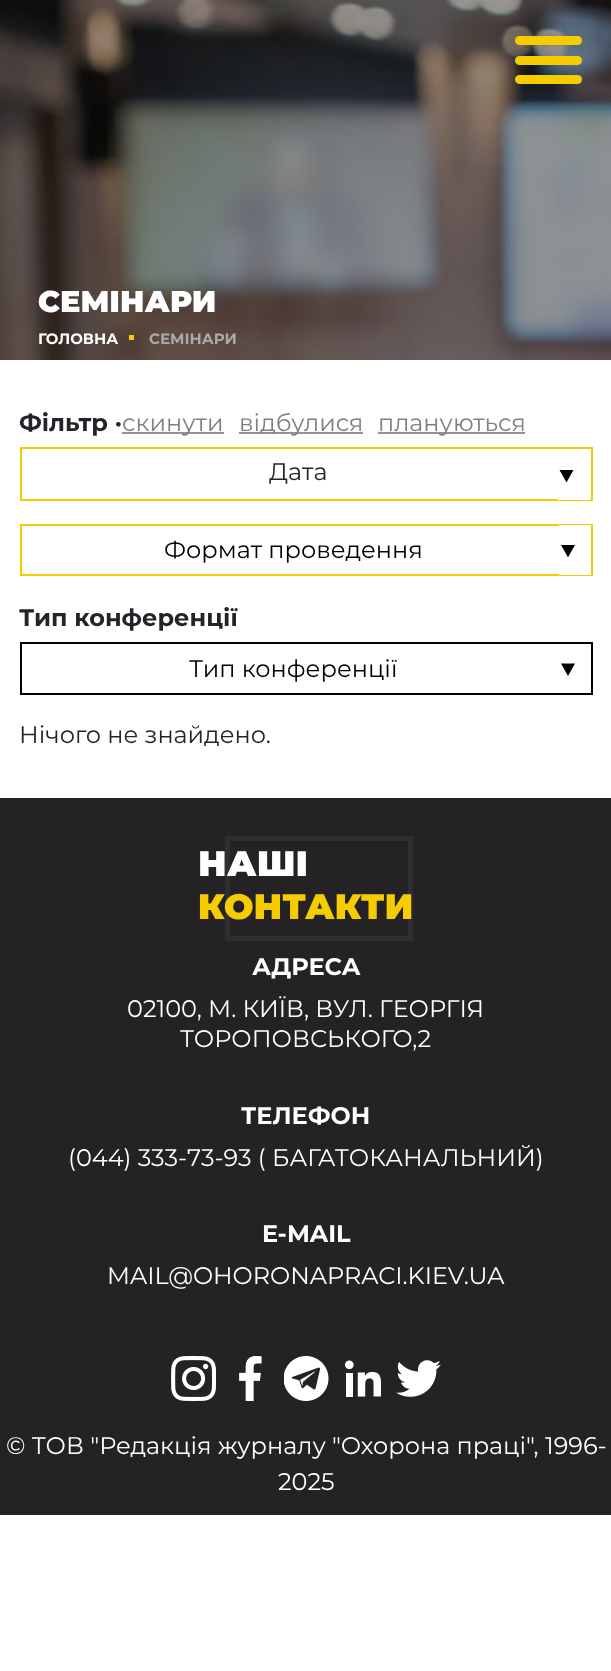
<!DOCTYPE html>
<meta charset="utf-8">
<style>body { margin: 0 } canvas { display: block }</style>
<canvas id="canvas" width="611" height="1671"></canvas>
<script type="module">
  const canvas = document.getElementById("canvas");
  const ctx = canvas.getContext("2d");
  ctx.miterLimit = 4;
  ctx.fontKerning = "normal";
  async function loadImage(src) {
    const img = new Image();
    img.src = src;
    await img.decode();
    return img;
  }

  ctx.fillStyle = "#ffffff";
  ctx.fillRect(0, 0, 611, 1671);
  ctx.drawImage(await loadImage("img1.png"), 0, 0, 611, 360);
  ctx.fillStyle = "#f5cc00";
  ctx.beginPath();
  ctx.roundRect(515, 36, 67, 9, 4.5);
  ctx.fill();
  ctx.beginPath();
  ctx.roundRect(515, 56, 67, 9, 4.5);
  ctx.fill();
  ctx.beginPath();
  ctx.roundRect(515, 75, 67, 9, 4.5);
  ctx.fill();
  ctx.font = "900 30px Montserrat";
  ctx.fillStyle = "#ffffff";
  ctx.fillText("СЕМІНАРИ", 38, 312);
  ctx.font = "bold 15px Montserrat";
  ctx.fillText("ГОЛОВНА", 38, 344);
  ctx.fillStyle = "#f5cc00";
  ctx.fillRect(129, 335, 5, 5);
  ctx.fillStyle = "#a9abaa";
  ctx.fillText("СЕМІНАРИ", 149, 344);
  ctx.font = "bold 24px Montserrat";
  ctx.fillStyle = "#212529";
  ctx.fillText("Фільтр ·", 19, 431);
  ctx.fillStyle = "#909294";
  ctx.fillRect(122, 432, 102, 2);
  ctx.font = "24px Montserrat";
  ctx.fillStyle = "#808080";
  ctx.fillText("скинути", 122, 431);
  ctx.fillStyle = "#909294";
  ctx.fillRect(239, 432, 124, 2);
  ctx.fillStyle = "#808080";
  ctx.fillText("відбулися", 239, 431);
  ctx.fillStyle = "#909294";
  ctx.fillRect(378, 432, 147, 2);
  ctx.fillStyle = "#808080";
  ctx.fillText("плануються", 378, 431);
  ctx.strokeStyle = "#f5cc00";
  ctx.lineWidth = 2;
  ctx.strokeRect(21, 448, 571, 52);
  ctx.fillStyle = "#212529";
  ctx.fillText("Дата", 269, 480);
  ctx.fillStyle = "#ffffff";
  ctx.fillRect(558, 499, 32, 1);
  ctx.fillStyle = "#000000";
  ctx.beginPath();
  ctx.moveTo(566.5, 482.5);
  ctx.lineTo(559.5, 470);
  ctx.lineTo(573.5, 470);
  ctx.closePath();
  ctx.fill();
  ctx.strokeRect(21, 525, 571, 50);
  ctx.fillText("Формат проведення", 164, 558);
  ctx.fillStyle = "#ffffff";
  ctx.fillRect(559, 525, 32, 50);
  ctx.fillStyle = "#000000";
  ctx.beginPath();
  ctx.moveTo(568, 557.5);
  ctx.lineTo(561, 545);
  ctx.lineTo(575, 545);
  ctx.closePath();
  ctx.fill();
  ctx.font = "bold 24px Montserrat";
  ctx.fillStyle = "#212529";
  ctx.fillText("Тип конференції", 19, 626);
  ctx.strokeStyle = "#000000";
  ctx.strokeRect(21, 643, 571, 51);
  ctx.font = "24px Montserrat";
  ctx.fillStyle = "#000000";
  ctx.fillText("Тип конференції", 189, 677);
  ctx.beginPath();
  ctx.moveTo(568, 676);
  ctx.lineTo(561, 663.5);
  ctx.lineTo(575, 663.5);
  ctx.closePath();
  ctx.fill();
  ctx.fillStyle = "#212529";
  ctx.fillText("Нічого не знайдено.", 19, 743);
  ctx.fillStyle = "#242224";
  ctx.fillRect(0, 798, 611, 717);
  ctx.font = "900 35.25px Montserrat";
  ctx.fillStyle = "#ffffff";
  ctx.fillText("НАШІ", 198, 876);
  ctx.fillStyle = "#f5cc00";
  ctx.fillText("КОНТАКТИ", 198, 919);
  ctx.strokeStyle = "rgba(255, 255, 255, 0.05)";
  ctx.lineWidth = 5;
  ctx.strokeRect(227.5, 838.5, 183, 100);
  ctx.font = "bold 24px Montserrat";
  ctx.fillStyle = "#ffffff";
  ctx.fillText("АДРЕСА", 252, 975);
  ctx.font = "24px Montserrat";
  ctx.fillText("02100, М. КИЇВ, ВУЛ. ГЕОРГІЯ", 127, 1017);
  ctx.fillText("ТОРОПОВСЬКОГО,2", 180, 1047);
  ctx.font = "bold 24px Montserrat";
  ctx.fillText("ТЕЛЕФОН", 241, 1124);
  ctx.font = "24px Montserrat";
  ctx.fillText("(044) 333-73-93 ( БАГАТОКАНАЛЬНИЙ)", 68, 1166);
  ctx.font = "bold 24px Montserrat";
  ctx.fillText("E-MAIL", 262, 1242);
  ctx.font = "24px Montserrat";
  ctx.fillText("MAIL@OHORONAPRACI.KIEV.UA", 107, 1284);
  ctx.drawImage(await loadImage("img2.png"), 171, 1356, 45, 45);
  ctx.drawImage(await loadImage("img3.png"), 239, 1356, 23, 45);
  ctx.drawImage(await loadImage("img4.png"), 284, 1356, 45, 45);
  ctx.drawImage(await loadImage("img5.png"), 345, 1360, 36, 37);
  ctx.drawImage(await loadImage("img6.png"), 396, 1360, 45, 37);
  ctx.fillText("© ТОВ \"Редакція журналу \"Охорона праці\", 1996-", 6, 1454);
  ctx.fillText("2025", 278, 1490);
</script>
